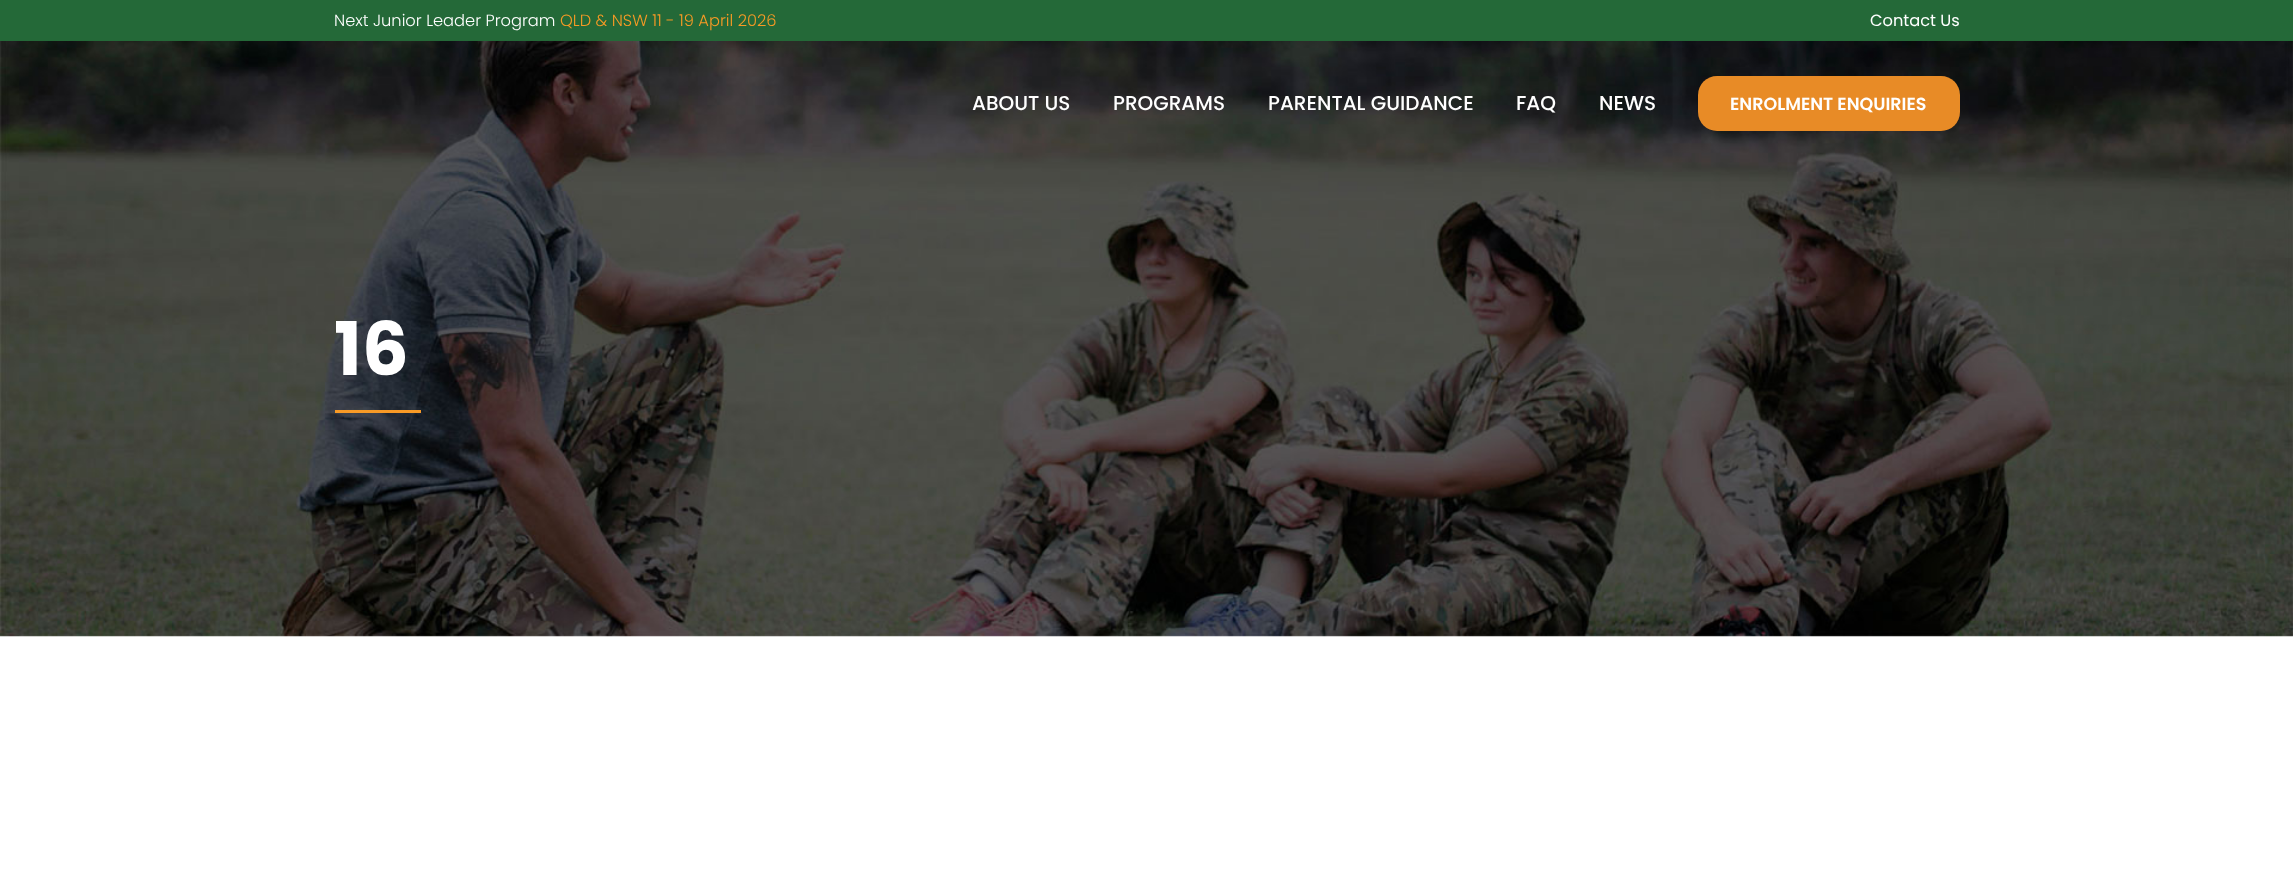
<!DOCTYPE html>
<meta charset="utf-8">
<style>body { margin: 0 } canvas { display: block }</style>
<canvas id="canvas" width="2293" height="882"></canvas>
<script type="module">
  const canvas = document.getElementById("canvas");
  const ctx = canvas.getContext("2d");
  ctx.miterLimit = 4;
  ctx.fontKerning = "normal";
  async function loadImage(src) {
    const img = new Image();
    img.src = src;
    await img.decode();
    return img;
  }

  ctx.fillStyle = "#ffffff";
  ctx.fillRect(0, 0, 2293, 882);
  ctx.fillStyle = "#246938";
  ctx.fillRect(0, 0, 2293, 41);
  ctx.font = "300 16.25px Poppins";
  ctx.fillStyle = "#ffffff";
  ctx.fillText("Next Junior Leader Program", 334, 26);
  ctx.fillStyle = "#f79a25";
  ctx.fillText("QLD & NSW 11 - 19 April 2026", 560, 26);
  ctx.font = "16.25px Poppins";
  ctx.fillStyle = "#ffffff";
  ctx.fillText("Contact Us", 1870, 26);
  ctx.drawImage(await loadImage("img1.png"), 0, 41, 2293, 596);
  ctx.font = "500 20px Poppins";
  ctx.fillText("ABOUT US", 972, 110);
  ctx.fillText("PROGRAMS", 1113, 110);
  ctx.fillText("PARENTAL GUIDANCE", 1268, 110);
  ctx.fillText("FAQ", 1516, 110);
  ctx.fillText("NEWS", 1599, 110);
  ctx.fillStyle = "#e88b26";
  ctx.beginPath();
  ctx.roundRect(1698, 76, 262, 55, 19);
  ctx.fill();
  ctx.font = "600 17.5px Poppins";
  ctx.fillStyle = "#ffffff";
  ctx.fillText("ENROLMENT ENQUIRIES", 1730, 110);
  ctx.font = "bold 74px Poppins";
  ctx.fillText("16", 334, 375);
  ctx.fillStyle = "#f89a26";
  ctx.fillRect(335, 410, 86, 3);
</script>
